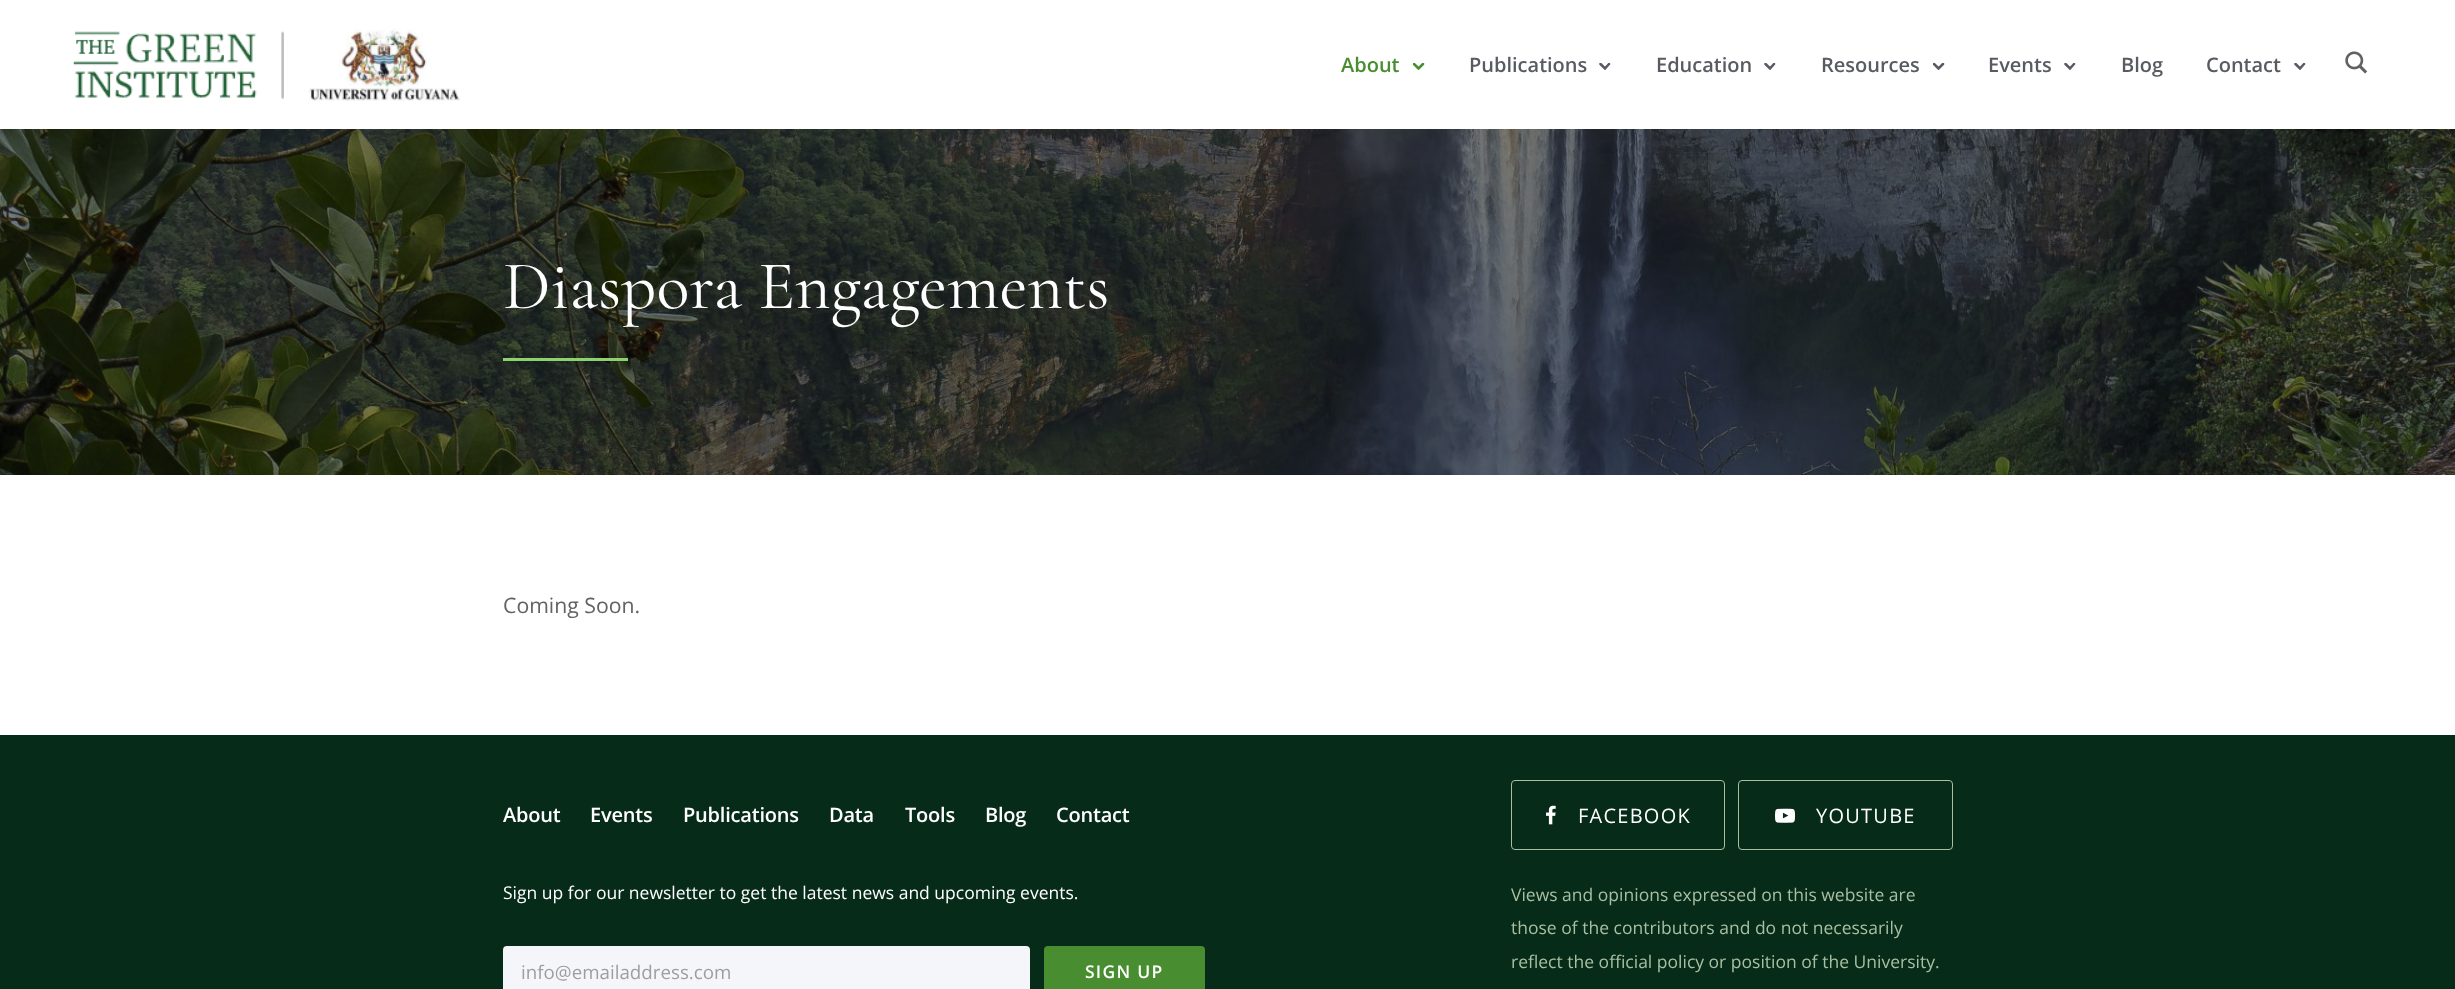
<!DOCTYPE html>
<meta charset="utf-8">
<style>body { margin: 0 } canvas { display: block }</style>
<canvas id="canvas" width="2455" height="989"></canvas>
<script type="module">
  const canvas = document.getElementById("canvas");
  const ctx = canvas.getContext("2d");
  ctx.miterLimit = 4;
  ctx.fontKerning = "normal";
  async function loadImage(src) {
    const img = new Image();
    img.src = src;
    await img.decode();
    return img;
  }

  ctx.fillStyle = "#ffffff";
  ctx.fillRect(0, 0, 2455, 989);
  ctx.drawImage(await loadImage("img1.png"), 73, 28, 387, 73);
  ctx.font = "600 20px Open Sans";
  ctx.fillStyle = "#488d30";
  ctx.fillText("About", 1341, 72);
  ctx.save();
  ctx.beginPath();
  ctx.rect(1413, 63, 12, 7);
  ctx.clip();
  ctx.beginPath();
  ctx.moveTo(1423, 64);
  ctx.lineTo(1418.5, 68.5);
  ctx.lineTo(1414, 64);
  ctx.strokeStyle = "#488d30";
  ctx.lineWidth = 2.5;
  ctx.lineCap = "round";
  ctx.stroke();
  ctx.restore();
  ctx.fillStyle = "#585b61";
  ctx.fillText("Publications", 1469, 72);
  ctx.save();
  ctx.beginPath();
  ctx.rect(1599, 63, 12, 7);
  ctx.clip();
  ctx.beginPath();
  ctx.moveTo(1609, 64);
  ctx.lineTo(1605, 68.5);
  ctx.lineTo(1600.5, 64);
  ctx.strokeStyle = "#585b61";
  ctx.lineWidth = 2.5;
  ctx.lineCap = "round";
  ctx.stroke();
  ctx.restore();
  ctx.fillText("Education", 1656, 72);
  ctx.save();
  ctx.beginPath();
  ctx.rect(1764, 63, 12, 7);
  ctx.clip();
  ctx.beginPath();
  ctx.moveTo(1774, 64);
  ctx.lineTo(1770, 68.5);
  ctx.lineTo(1765.5, 64);
  ctx.strokeStyle = "#585b61";
  ctx.lineWidth = 2.5;
  ctx.lineCap = "round";
  ctx.stroke();
  ctx.restore();
  ctx.fillText("Resources", 1821, 72);
  ctx.save();
  ctx.beginPath();
  ctx.rect(1933, 63, 12, 7);
  ctx.clip();
  ctx.beginPath();
  ctx.moveTo(1943, 64);
  ctx.lineTo(1938.5, 68.5);
  ctx.lineTo(1934, 64);
  ctx.strokeStyle = "#585b61";
  ctx.lineWidth = 2.5;
  ctx.lineCap = "round";
  ctx.stroke();
  ctx.restore();
  ctx.fillText("Events", 1988, 72);
  ctx.save();
  ctx.beginPath();
  ctx.rect(2064, 63, 12, 7);
  ctx.clip();
  ctx.beginPath();
  ctx.moveTo(2074, 64);
  ctx.lineTo(2070, 68.5);
  ctx.lineTo(2065.5, 64);
  ctx.strokeStyle = "#585b61";
  ctx.lineWidth = 2.5;
  ctx.lineCap = "round";
  ctx.stroke();
  ctx.restore();
  ctx.fillText("Blog", 2121, 72);
  ctx.fillText("Contact", 2206, 72);
  ctx.save();
  ctx.beginPath();
  ctx.rect(2294, 63, 12, 7);
  ctx.clip();
  ctx.beginPath();
  ctx.moveTo(2304, 64);
  ctx.lineTo(2300, 68.5);
  ctx.lineTo(2295.5, 64);
  ctx.strokeStyle = "#585b61";
  ctx.lineWidth = 2.5;
  ctx.lineCap = "round";
  ctx.stroke();
  ctx.restore();
  ctx.drawImage(await loadImage("img2.png"), 2345, 51, 23, 23);
  ctx.drawImage(await loadImage("img3.png"), 0, 129, 2455, 346);
  ctx.font = "68.75px Cormorant Garamond";
  ctx.fillStyle = "#ffffff";
  ctx.fillText("Diaspora Engagements", 503, 308);
  ctx.fillStyle = "#8cd271";
  ctx.fillRect(503, 358, 125, 3);
  ctx.font = "21.25px Open Sans";
  ctx.fillStyle = "#626264";
  ctx.fillText("Coming Soon.", 503, 613);
  ctx.fillStyle = "#072b19";
  ctx.fillRect(0, 735, 2455, 254);
  ctx.letterSpacing = "-0.2px";
  ctx.font = "600 20px Open Sans";
  ctx.fillStyle = "#ffffff";
  ctx.fillText("About", 503, 822);
  ctx.fillText("Events", 590, 822);
  ctx.fillText("Publications", 683, 822);
  ctx.fillText("Data", 829, 822);
  ctx.fillText("Tools", 905, 822);
  ctx.fillText("Blog", 985, 822);
  ctx.fillText("Contact", 1056, 822);
  ctx.beginPath();
  ctx.roundRect(1511.5, 780.5, 213, 69, 3.5);
  ctx.strokeStyle = "#a9bfa1";
  ctx.stroke();
  ctx.drawImage(await loadImage("img4.png"), 1546, 805, 10, 20);
  ctx.letterSpacing = "1.25px";
  ctx.font = "20px Open Sans";
  ctx.fillText("FACEBOOK", 1578, 823);
  ctx.beginPath();
  ctx.roundRect(1738.5, 780.5, 214, 69, 3.5);
  ctx.stroke();
  ctx.drawImage(await loadImage("img5.png"), 1775, 808, 20, 15);
  ctx.fillText("YOUTUBE", 1816, 823);
  ctx.letterSpacing = "0px";
  ctx.font = "17.5px Open Sans";
  ctx.fillText("Sign up for our newsletter to get the latest news and upcoming events.", 503, 899);
  ctx.fillStyle = "#f5f6fa";
  ctx.beginPath();
  ctx.roundRect(503, 946, 527, 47, 4);
  ctx.fill();
  ctx.font = "18.75px Open Sans";
  ctx.fillStyle = "#9e9e9e";
  ctx.fillText("info@emailaddress.com", 521, 979);
  ctx.fillStyle = "#488d30";
  ctx.beginPath();
  ctx.roundRect(1044, 946, 161, 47, 4);
  ctx.fill();
  ctx.letterSpacing = "1.25px";
  ctx.font = "600 17.5px Open Sans";
  ctx.fillStyle = "#ffffff";
  ctx.fillText("SIGN UP", 1085, 978);
  ctx.letterSpacing = "0px";
  ctx.font = "17.5px Open Sans";
  ctx.fillStyle = "#a9bfa1";
  ctx.fillText("Views and opinions expressed on this website are", 1511, 901);
  ctx.fillText("those of the contributors and do not necessarily", 1511, 934);
  ctx.fillText("reflect the official policy or position of the University.", 1511, 968);
</script>
